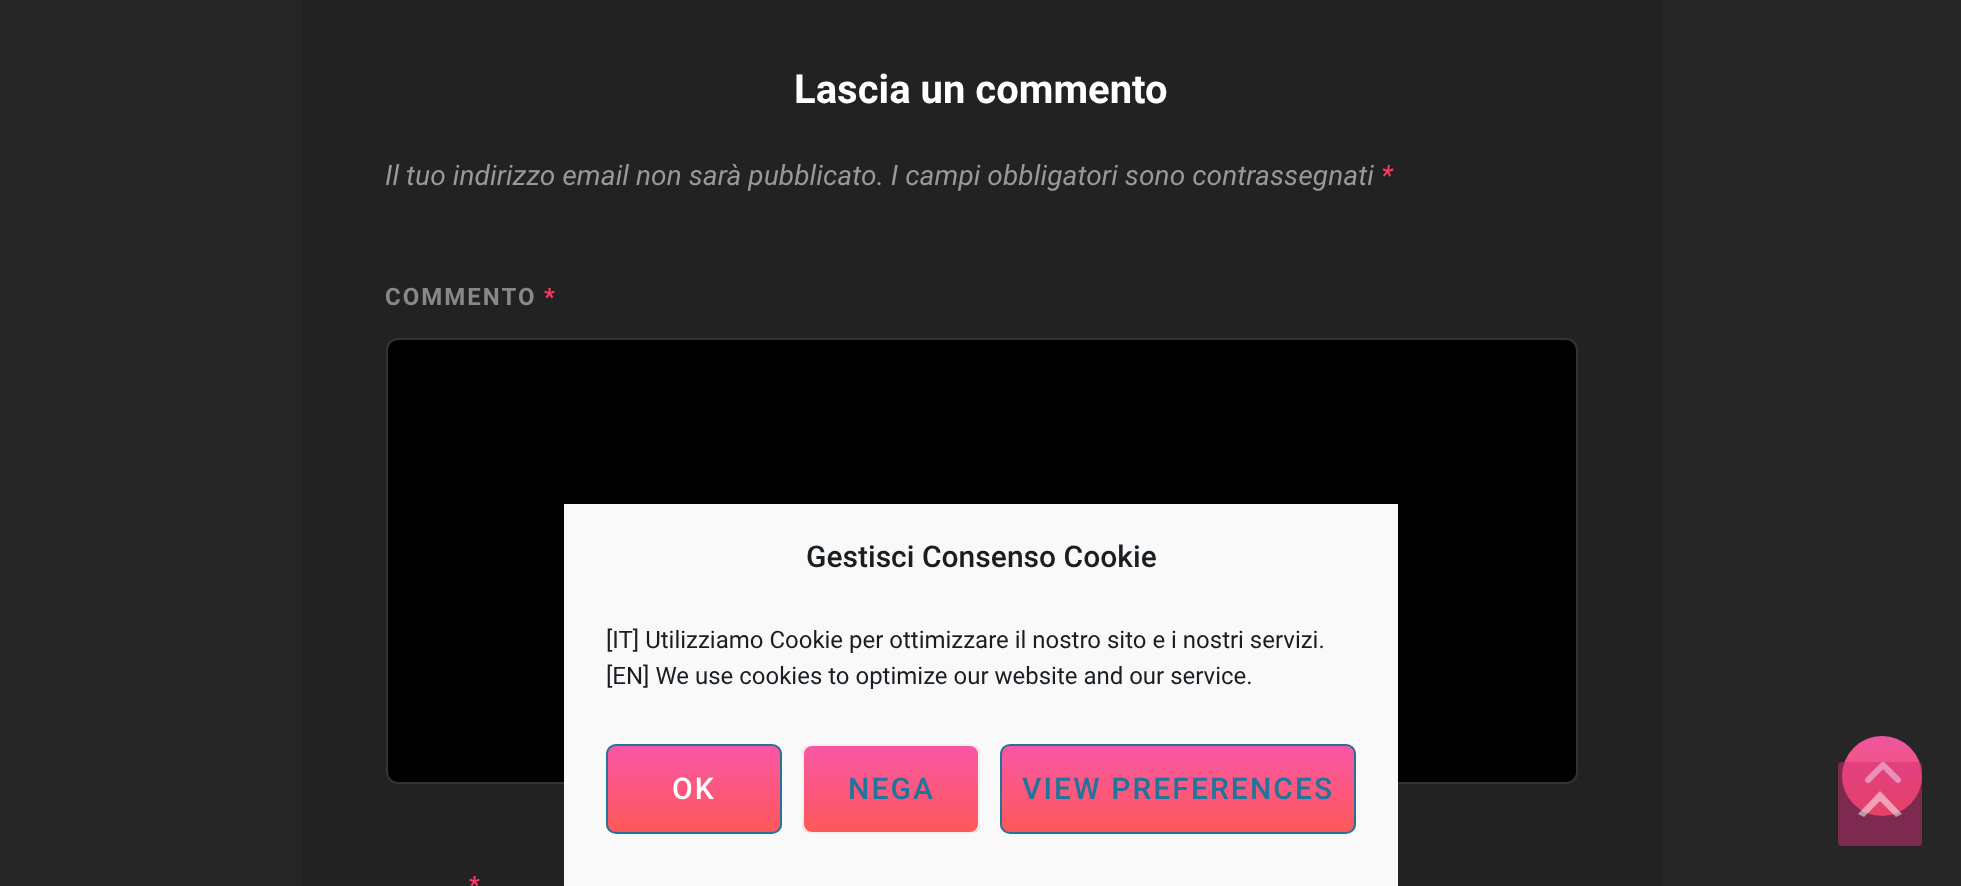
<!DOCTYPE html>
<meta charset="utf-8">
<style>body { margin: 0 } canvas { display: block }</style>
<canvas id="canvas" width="1961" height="886"></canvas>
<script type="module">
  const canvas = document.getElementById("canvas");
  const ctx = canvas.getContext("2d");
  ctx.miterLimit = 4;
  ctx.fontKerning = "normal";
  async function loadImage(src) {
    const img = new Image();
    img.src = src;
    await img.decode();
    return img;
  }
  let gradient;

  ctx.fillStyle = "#262626";
  ctx.fillRect(0, 0, 1961, 886);
  ctx.fillStyle = "#222222";
  ctx.fillRect(302, 0, 1360, 886);
  ctx.font = "bold 40px Roboto";
  ctx.fillStyle = "#ffffff";
  ctx.fillText("Lascia un commento", 794, 103);
  ctx.font = "italic 28px Roboto";
  ctx.fillStyle = "#999999";
  ctx.fillText("Il tuo indirizzo email non sarà pubblicato. I campi obbligatori sono contrassegnati", 385, 185);
  ctx.fillStyle = "#fb3a64";
  ctx.fillText("*", 1381, 185);
  ctx.letterSpacing = "2px";
  ctx.font = "bold 24px Roboto";
  ctx.fillStyle = "#888888";
  ctx.fillText("COMMENTO", 385, 305);
  ctx.fillStyle = "#fb3a64";
  ctx.fillText("*", 544, 305);
  ctx.fillStyle = "#000000";
  ctx.beginPath();
  ctx.roundRect(387, 339, 1190, 444, 11);
  ctx.fill();
  ctx.strokeStyle = "#333333";
  ctx.lineWidth = 2;
  ctx.stroke();
  ctx.fillStyle = "#fb3a64";
  ctx.fillText("*", 469, 893);
  ctx.fillStyle = "#f9f9f9";
  ctx.fillRect(564, 504, 834, 382);
  ctx.letterSpacing = "0px";
  ctx.font = "500 30px Roboto";
  ctx.fillStyle = "#191e23";
  ctx.fillText("Gestisci Consenso Cookie", 806, 567);
  ctx.font = "24px Roboto";
  ctx.fillText("[IT] Utilizziamo Cookie per ottimizzare il nostro sito e i nostri servizi.", 606, 648);
  ctx.fillText("[EN] We use cookies to optimize our website and our service.", 606, 684);
  ctx.save();
  ctx.beginPath();
  ctx.roundRect(606, 744, 176, 90, 10);
  ctx.clip();
  gradient = ctx.createLinearGradient(695, 746, 695, 832);
  gradient.addColorStop(0, "#f857a6");
  gradient.addColorStop(1, "#ff5858");
  ctx.fillStyle = gradient;
  ctx.fillRect(606, 746, 176, 86);
  ctx.restore();
  ctx.beginPath();
  ctx.roundRect(607, 745, 174, 88, 9);
  ctx.strokeStyle = "#21759b";
  ctx.stroke();
  ctx.letterSpacing = "2.1px";
  ctx.font = "500 30px Roboto";
  ctx.fillStyle = "#ffffff";
  ctx.fillText("OK", 672, 799);
  ctx.save();
  ctx.beginPath();
  ctx.roundRect(802, 744, 178, 90, 10);
  ctx.clip();
  gradient = ctx.createLinearGradient(892, 746, 892, 832);
  gradient.addColorStop(0, "#f857a6");
  gradient.addColorStop(1, "#ff5858");
  ctx.fillStyle = gradient;
  ctx.fillRect(802, 746, 178, 86);
  ctx.restore();
  ctx.beginPath();
  ctx.roundRect(803, 745, 176, 88, 9);
  ctx.strokeStyle = "#f1f1f1";
  ctx.stroke();
  ctx.fillStyle = "#21759b";
  ctx.fillText("NEGA", 848, 799);
  ctx.save();
  ctx.beginPath();
  ctx.roundRect(1000, 744, 356, 90, 10);
  ctx.clip();
  gradient = ctx.createLinearGradient(1179, 746, 1179, 832);
  gradient.addColorStop(0, "#f857a6");
  gradient.addColorStop(1, "#ff5858");
  ctx.fillStyle = gradient;
  ctx.fillRect(1000, 746, 356, 86);
  ctx.restore();
  ctx.beginPath();
  ctx.roundRect(1001, 745, 354, 88, 9);
  ctx.strokeStyle = "#21759b";
  ctx.stroke();
  ctx.fillText("VIEW PREFERENCES", 1022, 799);
  gradient = ctx.createLinearGradient(1882, 736, 1882, 816);
  gradient.addColorStop(0, "#ee55a0");
  gradient.addColorStop(1, "#f55656");
  ctx.fillStyle = gradient;
  ctx.beginPath();
  ctx.arc(1882, 776, 40, 0, Math.PI * 2);
  ctx.fill();
  ctx.drawImage(await loadImage("img1.png"), 1865, 762, 36, 21);
  ctx.fillStyle = "rgba(211, 44, 122, 0.5)";
  ctx.beginPath();
  ctx.roundRect(1838, 762, 84, 84, 4);
  ctx.fill();
  ctx.fillStyle = "rgba(255, 255, 255, 0.5)";
  ctx.beginPath();
  ctx.moveTo(1896, 817);
  ctx.lineTo(1880, 801);
  ctx.lineTo(1864, 817);
  ctx.lineTo(1858, 814);
  ctx.lineTo(1880, 791);
  ctx.lineTo(1902, 814);
  ctx.closePath();
  ctx.fill();
</script>
